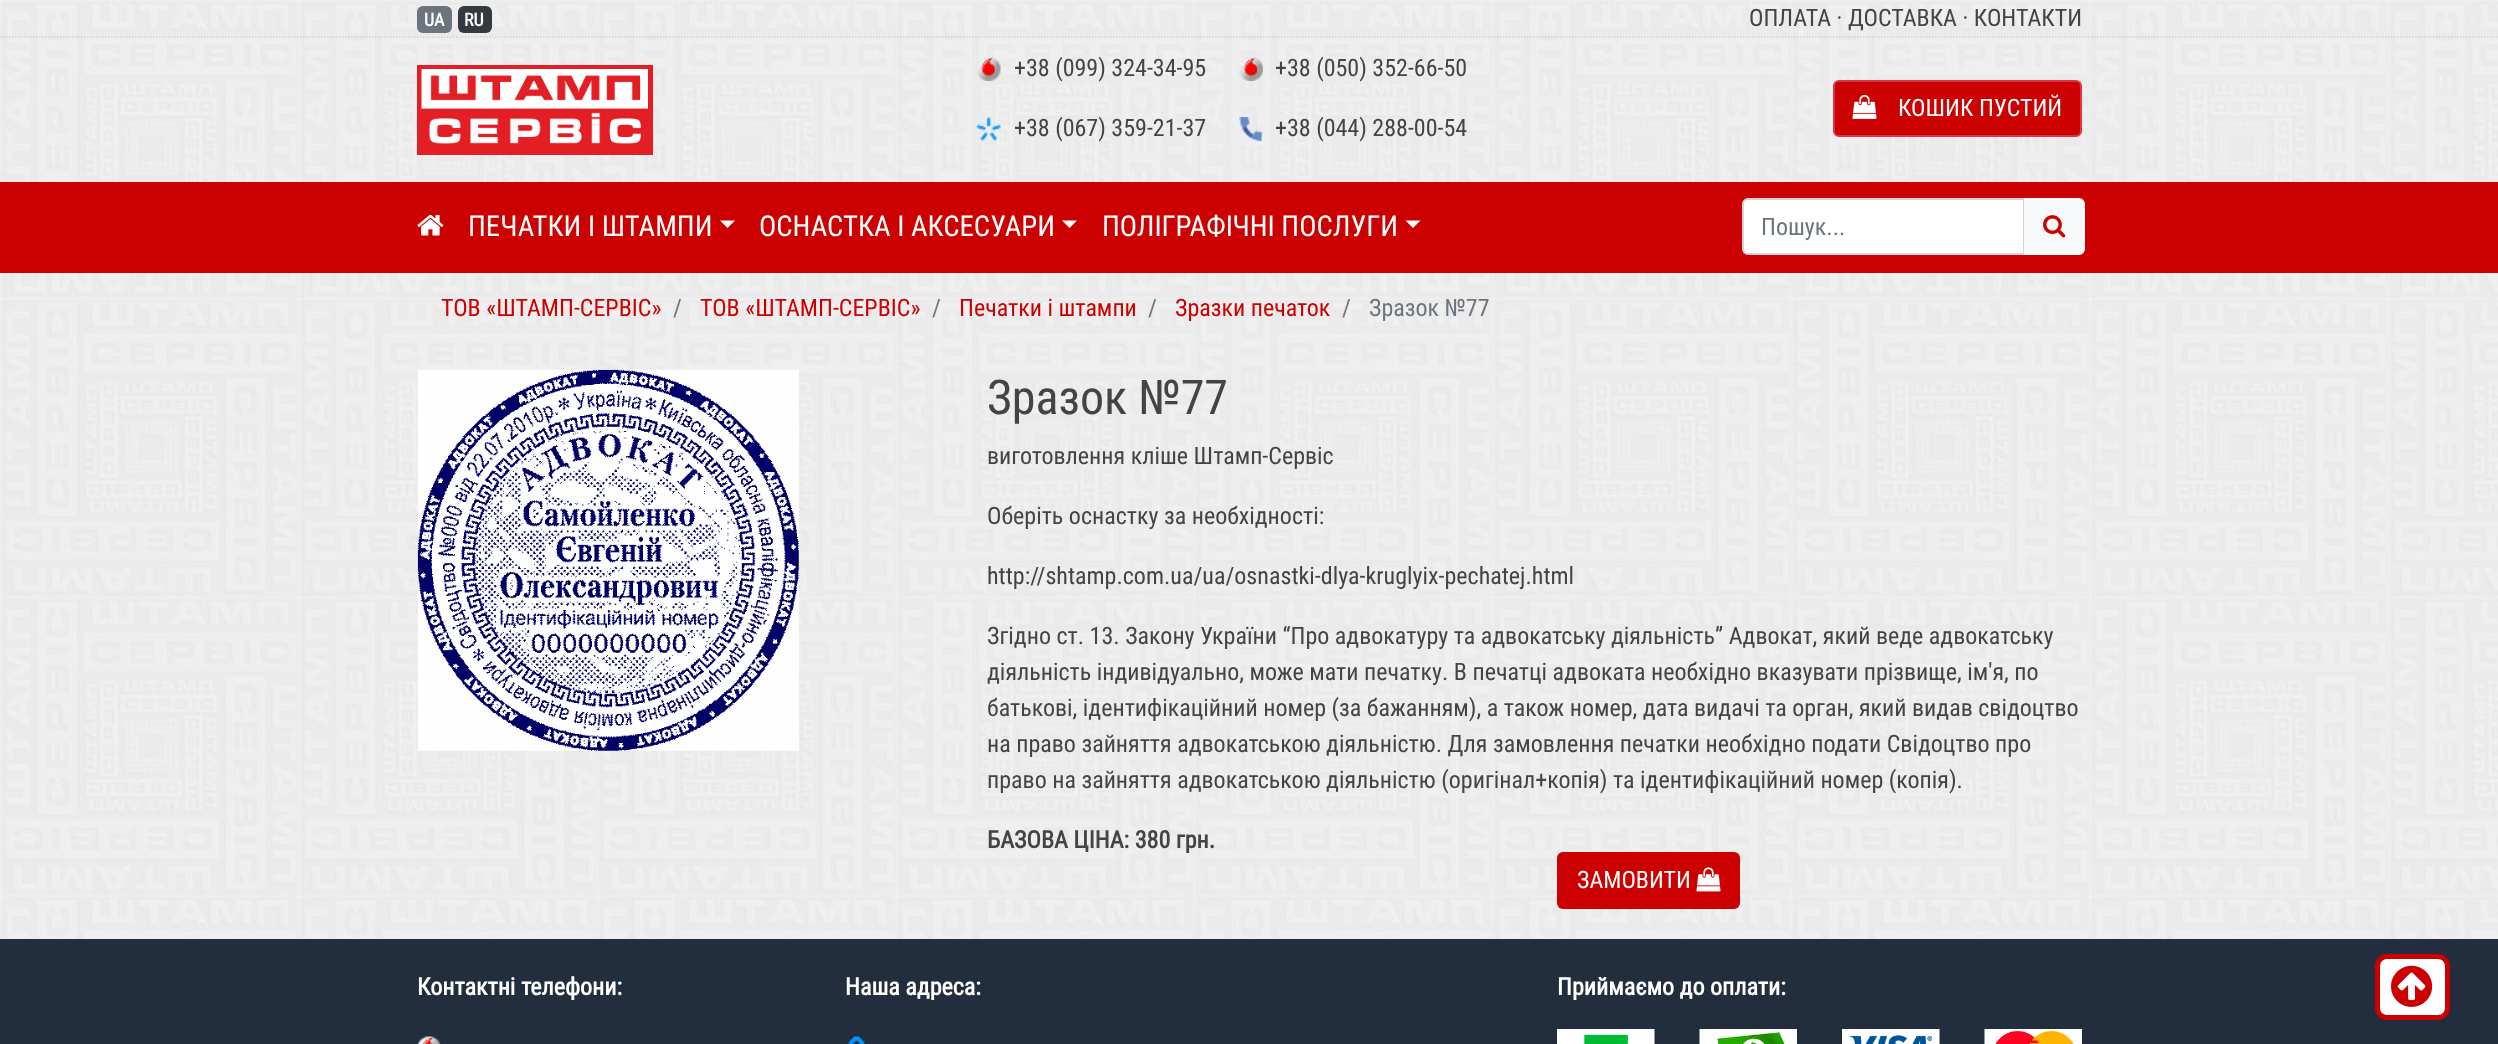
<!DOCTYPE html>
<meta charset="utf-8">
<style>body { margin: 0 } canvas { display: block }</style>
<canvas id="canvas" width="2498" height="1044"></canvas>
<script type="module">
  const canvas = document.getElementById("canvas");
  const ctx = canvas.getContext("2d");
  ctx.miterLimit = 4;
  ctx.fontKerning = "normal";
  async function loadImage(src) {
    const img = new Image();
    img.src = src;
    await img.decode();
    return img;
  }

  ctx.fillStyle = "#ffffff";
  ctx.fillRect(0, 0, 2498, 1044);
  ctx.drawImage(await loadImage("img1.png"), 0, 0, 2498, 939);
  ctx.beginPath();
  ctx.moveTo(0, 37);
  ctx.lineTo(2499, 37);
  ctx.strokeStyle = "#cccccc";
  ctx.lineWidth = 1.5;
  ctx.setLineDash([1.5, 1.5]);
  ctx.stroke();
  ctx.fillStyle = "#6c757d";
  ctx.beginPath();
  ctx.roundRect(417, 6, 35, 27, 6);
  ctx.fill();
  ctx.font = "bold 18px Roboto Condensed";
  ctx.fillStyle = "#ffffff";
  ctx.fillText("UA", 424, 26);
  ctx.fillStyle = "#343a40";
  ctx.beginPath();
  ctx.roundRect(458, 6, 34, 27, 6);
  ctx.fill();
  ctx.fillStyle = "#ffffff";
  ctx.fillText("RU", 464, 26);
  ctx.font = "24px Roboto Condensed";
  ctx.fillStyle = "#444444";
  ctx.fillText("ОПЛАТА · ДОСТАВКА · КОНТАКТИ", 1749, 26);
  ctx.strokeStyle = "#e31e24";
  ctx.lineWidth = 5;
  ctx.setLineDash([]);
  ctx.strokeRect(419.5, 67.5, 231, 85);
  ctx.drawImage(await loadImage("img2.png"), 421, 69, 227, 81);
  ctx.drawImage(await loadImage("img3.png"), 976, 57, 25, 24);
  ctx.fillText("+38 (099) 324-34-95", 1014, 76);
  ctx.drawImage(await loadImage("img4.png"), 1239, 57, 24, 24);
  ctx.fillText("+38 (050) 352-66-50", 1275, 76);
  ctx.drawImage(await loadImage("img5.png"), 976, 117, 25, 24);
  ctx.fillText("+38 (067) 359-21-37", 1014, 136);
  ctx.drawImage(await loadImage("img6.png"), 1239, 117, 24, 24);
  ctx.fillText("+38 (044) 288-00-54", 1275, 136);
  ctx.fillStyle = "#cc0000";
  ctx.beginPath();
  ctx.roundRect(1834, 81, 247, 55, 5);
  ctx.fill();
  ctx.strokeStyle = "#dc3545";
  ctx.lineWidth = 2;
  ctx.stroke();
  ctx.drawImage(await loadImage("img7.png"), 1852, 94, 25, 25);
  ctx.fillStyle = "#ffffff";
  ctx.fillText("КОШИК ПУСТИЙ", 1898, 116);
  ctx.fillStyle = "#cc0000";
  ctx.fillRect(0, 182, 2498, 91);
  ctx.drawImage(await loadImage("img8.png"), 417, 214, 27, 22);
  ctx.font = "28.75px Roboto Condensed";
  ctx.fillStyle = "#ffffff";
  ctx.fillText("ПЕЧАТКИ І ШТАМПИ", 468, 236);
  ctx.beginPath();
  ctx.moveTo(720, 220.5);
  ctx.lineTo(735, 220.5);
  ctx.lineTo(727.5, 228);
  ctx.closePath();
  ctx.fill();
  ctx.fillText("ОСНАСТКА І АКСЕСУАРИ", 759, 236);
  ctx.beginPath();
  ctx.moveTo(1062, 220.5);
  ctx.lineTo(1077, 220.5);
  ctx.lineTo(1069.5, 228);
  ctx.closePath();
  ctx.fill();
  ctx.fillText("ПОЛІГРАФІЧНІ ПОСЛУГИ", 1102, 236);
  ctx.beginPath();
  ctx.moveTo(1405.5, 220.5);
  ctx.lineTo(1420.5, 220.5);
  ctx.lineTo(1413, 228);
  ctx.closePath();
  ctx.fill();
  ctx.beginPath();
  ctx.roundRect(1743, 199, 281, 55, [5, 0, 0, 5]);
  ctx.fill();
  ctx.strokeStyle = "#ced4da";
  ctx.stroke();
  ctx.font = "24px Roboto Condensed";
  ctx.fillStyle = "#6c757d";
  ctx.fillText("Пошук...", 1761, 235);
  ctx.fillStyle = "#f8f9fa";
  ctx.beginPath();
  ctx.roundRect(2025, 199, 59, 55, [0, 5, 5, 0]);
  ctx.fill();
  ctx.strokeStyle = "#f8f9fa";
  ctx.stroke();
  ctx.drawImage(await loadImage("img9.png"), 2043, 215, 23, 23);
  ctx.fillStyle = "#cc0000";
  ctx.fillText("ТОВ «ШТАМП-СЕРВІС»", 441, 316);
  ctx.fillStyle = "#6c757d";
  ctx.fillText("/", 673, 316);
  ctx.fillStyle = "#cc0000";
  ctx.fillText("ТОВ «ШТАМП-СЕРВІС»", 700, 316);
  ctx.fillStyle = "#6c757d";
  ctx.fillText("/", 932, 316);
  ctx.fillStyle = "#cc0000";
  ctx.fillText("Печатки і штампи", 959, 316);
  ctx.fillStyle = "#6c757d";
  ctx.fillText("/", 1148, 316);
  ctx.fillStyle = "#cc0000";
  ctx.fillText("Зразки печаток", 1175, 316);
  ctx.fillStyle = "#6c757d";
  ctx.fillText("/", 1342, 316);
  ctx.fillText("Зразок №77", 1369, 316);
  ctx.drawImage(await loadImage("img10.png"), 417, 369, 382, 382);
  ctx.font = "48px Roboto Condensed";
  ctx.fillStyle = "#444444";
  ctx.fillText("Зразок №77", 987, 414);
  ctx.font = "24px Roboto Condensed";
  ctx.fillText("виготовлення кліше Штамп-Сервіс", 987, 464);
  ctx.fillText("Оберіть оснастку за необхідності:", 987, 524);
  ctx.fillText("http://shtamp.com.ua/ua/osnastki-dlya-kruglyix-pechatej.html", 987, 584);
  ctx.fillText("Згідно ст. 13. Закону України “Про адвокатуру та адвокатську діяльність” Адвокат, який веде адвокатську", 987, 644);
  ctx.fillText("діяльність індивідуально, може мати печатку. В печатці адвоката необхідно вказувати прізвище, ім'я, по", 987, 680);
  ctx.fillText("батькові, ідентифікаційний номер (за бажанням), а також номер, дата видачі та орган, який видав свідоцтво", 987, 716);
  ctx.fillText("на право зайняття адвокатською діяльністю. Для замовлення печатки необхідно подати Свідоцтво про", 987, 752);
  ctx.fillText("право на зайняття адвокатською діяльністю (оригінал+копія) та ідентифікаційний номер (копія).", 987, 788);
  ctx.font = "bold 24px Roboto Condensed";
  ctx.fillText("БАЗОВА ЦІНА: 380 грн.", 987, 848);
  ctx.fillStyle = "#cc0000";
  ctx.beginPath();
  ctx.roundRect(1557, 852, 183, 57, 6);
  ctx.fill();
  ctx.font = "24px Roboto Condensed";
  ctx.fillStyle = "#ffffff";
  ctx.fillText("ЗАМОВИТИ", 1577, 888);
  ctx.drawImage(await loadImage("img11.png"), 1696, 867, 25, 25);
  ctx.fillStyle = "#222e3d";
  ctx.fillRect(0, 939, 2498, 105);
  ctx.font = "bold 24px Roboto Condensed";
  ctx.fillStyle = "#ffffff";
  ctx.fillText("Контактні телефони:", 417, 995);
  ctx.drawImage(await loadImage("img12.png"), 417, 1036, 24, 8);
  ctx.fillText("Наша адреса:", 845, 995);
  ctx.drawImage(await loadImage("img13.png"), 848, 1036, 17, 8);
  ctx.fillText("Приймаємо до оплати:", 1557, 995);
  ctx.drawImage(await loadImage("img14.png"), 1557, 1029, 98, 15);
  ctx.drawImage(await loadImage("img15.png"), 1699, 1029, 98, 15);
  ctx.drawImage(await loadImage("img16.png"), 1842, 1029, 98, 15);
  ctx.drawImage(await loadImage("img17.png"), 1984, 1029, 98, 15);
  ctx.beginPath();
  ctx.roundRect(2377.5, 956.5, 70, 61, 9.5);
  ctx.fill();
  ctx.strokeStyle = "#cc0000";
  ctx.lineWidth = 5;
  ctx.stroke();
  ctx.drawImage(await loadImage("img18.png"), 2391, 965, 42, 42);
</script>
